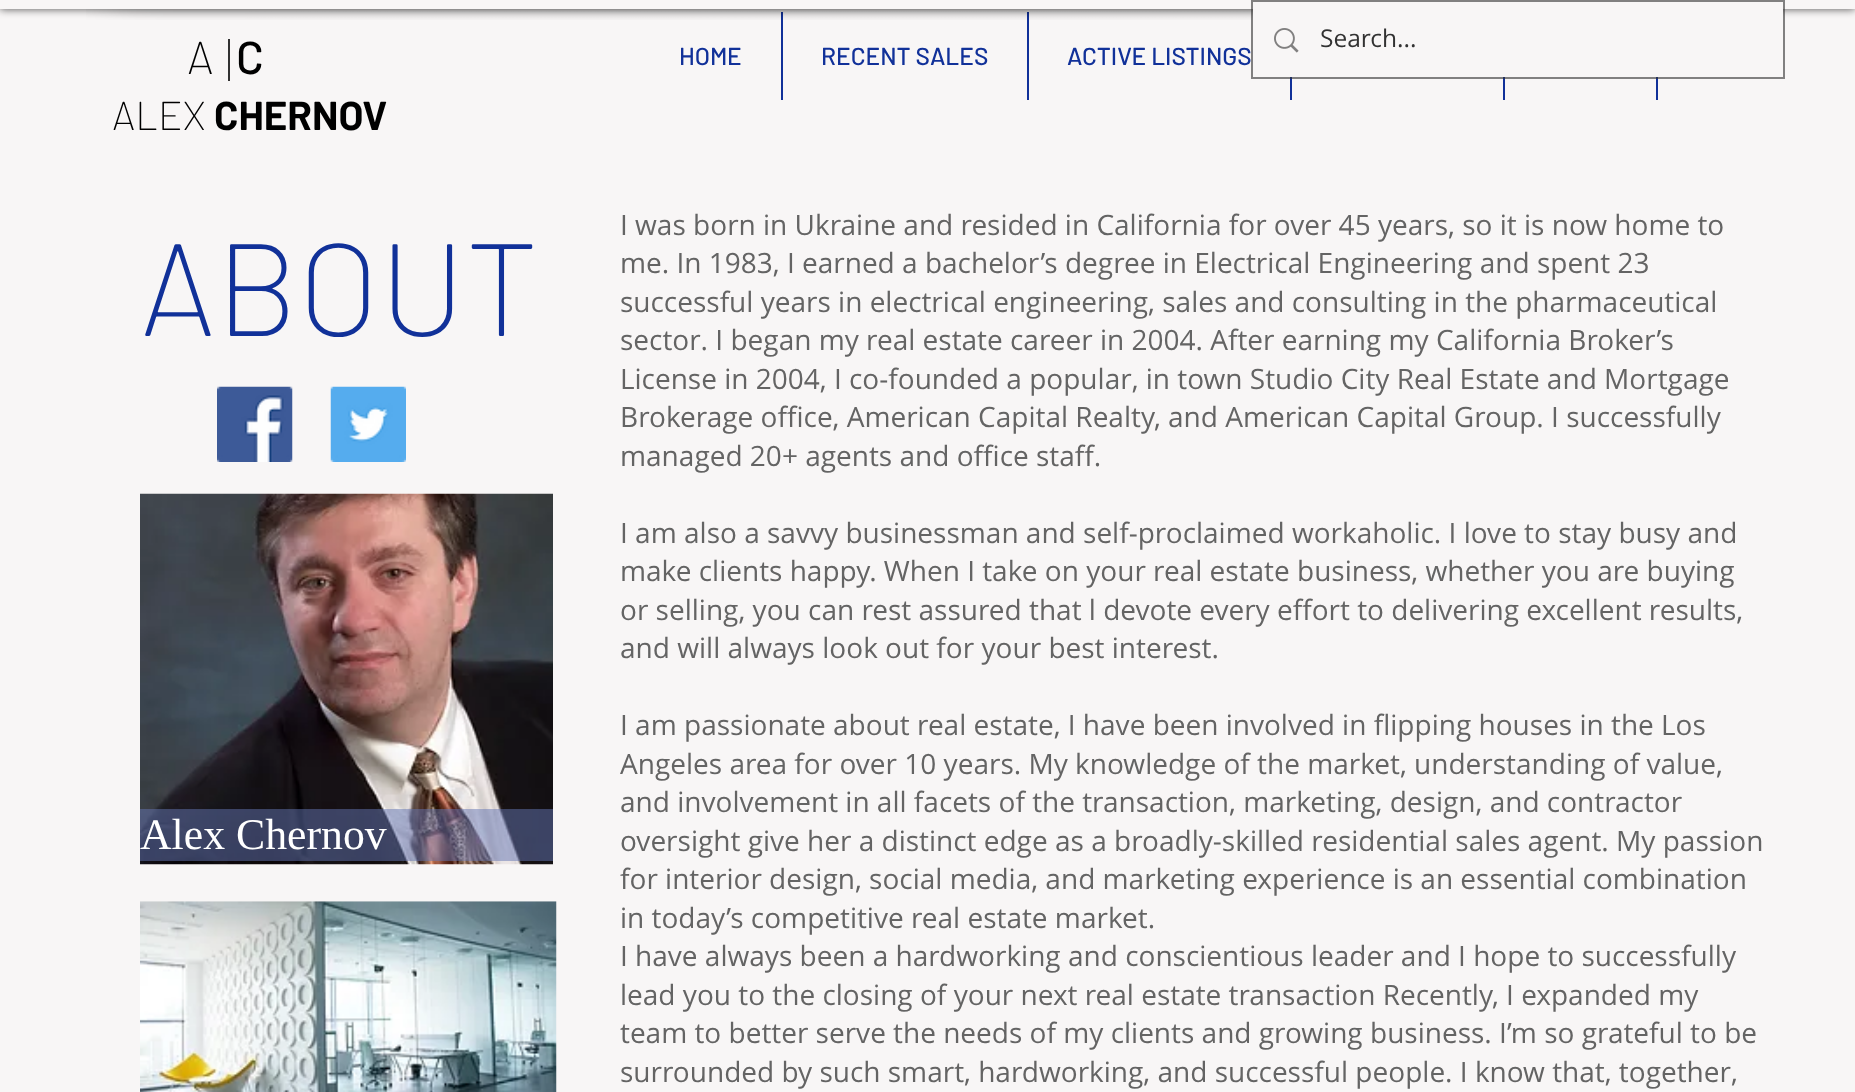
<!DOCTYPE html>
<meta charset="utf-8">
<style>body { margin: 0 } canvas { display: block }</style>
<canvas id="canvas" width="1855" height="1092"></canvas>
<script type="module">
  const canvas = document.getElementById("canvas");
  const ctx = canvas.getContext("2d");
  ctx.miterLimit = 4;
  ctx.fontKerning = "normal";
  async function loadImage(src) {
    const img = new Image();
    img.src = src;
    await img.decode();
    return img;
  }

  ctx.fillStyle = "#f8f6f6";
  ctx.fillRect(0, 0, 1855, 1092);
  ctx.drawImage(await loadImage("img1.png"), 86, 9, 159, 11);
  ctx.fillStyle = "#113199";
  ctx.fillRect(781, 12, 2, 88);
  ctx.fillRect(1027, 12, 2, 88);
  ctx.drawImage(await loadImage("img2.png"), 245, 9, 1008, 11);
  ctx.fillStyle = "rgba(0, 0, 0, 0.7)";
  ctx.filter = "blur(4.5px)";
  ctx.beginPath();
  ctx.rect(0, 0, 1855, 9);
  ctx.fill();
  ctx.filter = "none";
  ctx.fillStyle = "#f8f6f6";
  ctx.fillRect(0, 0, 1855, 9);
  ctx.fillStyle = "#113199";
  ctx.fillRect(1290, 77, 2, 23);
  ctx.fillRect(1503, 77, 2, 23);
  ctx.fillRect(1656, 77, 2, 23);
  ctx.strokeStyle = "rgba(50, 50, 50, 0.6)";
  ctx.lineWidth = 2;
  ctx.strokeRect(1252, 1, 532, 77);
  ctx.fillStyle = "#f8f6f6";
  ctx.fillRect(1253, 9, 530, 10);
  ctx.drawImage(await loadImage("img3.png"), 1274, 28, 25, 25);
  ctx.font = "24.5px Open Sans";
  ctx.fillStyle = "#323232";
  ctx.fillText("Search...", 1320, 47);
  ctx.fillRect(228, 39, 2, 42);
  ctx.font = "200 46px Barlow";
  ctx.fillStyle = "#000000";
  ctx.fillText("A", 187, 74);
  ctx.font = "500 46px Barlow";
  ctx.fillText("C", 236, 74);
  ctx.font = "500 24.5px Barlow";
  ctx.fillStyle = "#113199";
  ctx.fillText("HOME", 679, 65);
  ctx.fillText("RECENT SALES", 821, 65);
  ctx.fillText("ACTIVE LISTINGS", 1067, 65);
  ctx.font = "200 40.25px Barlow";
  ctx.fillStyle = "#000000";
  ctx.fillText("ALEX", 112, 130);
  ctx.font = "bold 40.25px Barlow";
  ctx.fillText("CHERNOV", 214, 130);
  ctx.font = "200 131px Barlow";
  ctx.fillStyle = "#113199";
  ctx.fillText("ABOUT", 140, 336);
  ctx.font = "28px Open Sans";
  ctx.fillStyle = "#646464";
  ctx.fillText("I was born in Ukraine and resided in California for over 45 years, so it is now home to", 620, 235);
  ctx.fillText("me. In 1983, I earned a bachelor’s degree in Electrical Engineering and spent 23", 620, 273);
  ctx.fillText("successful years in electrical engineering, sales and consulting in the pharmaceutical", 620, 312);
  ctx.fillText("sector. I began my real estate career in 2004. After earning my California Broker’s", 620, 350);
  ctx.fillText("License in 2004, I co-founded a popular, in town Studio City Real Estate and Mortgage", 620, 389);
  ctx.fillText("Brokerage office, American Capital Realty, and American Capital Group. I successfully", 620, 427);
  ctx.fillText("managed 20+ agents and office staff.", 620, 466);
  ctx.fillText("I am also a savvy businessman and self-proclaimed workaholic. I love to stay busy and", 620, 543);
  ctx.fillText("make clients happy. When I take on your real estate business, whether you are buying", 620, 581);
  ctx.fillText("or selling, you can rest assured that l devote every effort to delivering excellent results,", 620, 620);
  ctx.fillText("and will always look out for your best interest.", 620, 658);
  ctx.fillText("I am passionate about real estate, I have been involved in flipping houses in the Los", 620, 735);
  ctx.fillText("Angeles area for over 10 years. My knowledge of the market, understanding of value,", 620, 774);
  ctx.fillText("and involvement in all facets of the transaction, marketing, design, and contractor", 620, 812);
  ctx.fillText("oversight give her a distinct edge as a broadly-skilled residential sales agent. My passion", 620, 851);
  ctx.fillText("for interior design, social media, and marketing experience is an essential combination", 620, 889);
  ctx.fillText("in today’s competitive real estate market.", 620, 928);
  ctx.fillText("I have always been a hardworking and conscientious leader and I hope to successfully", 620, 966);
  ctx.fillText("lead you to the closing of your next real estate transaction Recently, I expanded my", 620, 1005);
  ctx.fillText("team to better serve the needs of my clients and growing business. I’m so grateful to be", 620, 1043);
  ctx.fillText("surrounded by such smart, hardworking, and successful people. I know that, together,", 620, 1082);
  ctx.drawImage(await loadImage("img4.png"), 217, 386, 76, 76);
  ctx.drawImage(await loadImage("img5.png"), 330, 386, 76, 76);
  ctx.drawImage(await loadImage("img6.png"), 140, 493, 413, 372);
  ctx.fillStyle = "rgba(99, 118, 179, 0.5)";
  ctx.fillRect(140, 809, 413, 52);
  ctx.font = "43.75px Liberation Serif";
  ctx.fillStyle = "#ffffff";
  ctx.fillText("Alex Chernov", 140, 849);
  ctx.drawImage(await loadImage("img7.png"), 140, 901, 417, 191);
</script>
